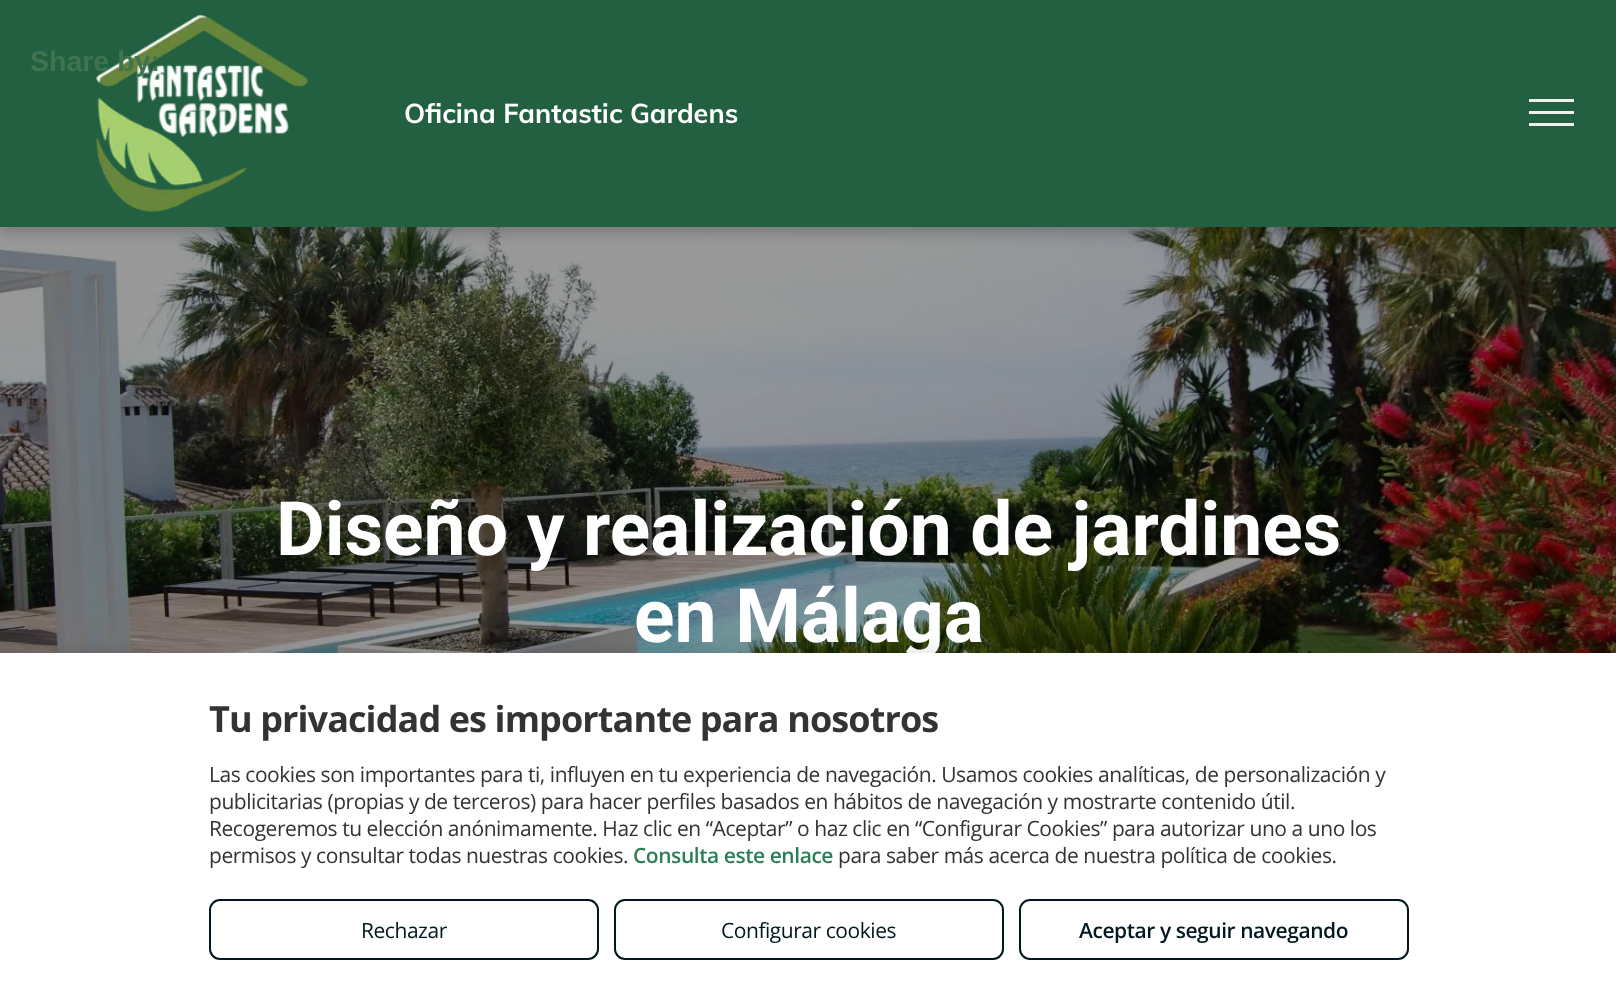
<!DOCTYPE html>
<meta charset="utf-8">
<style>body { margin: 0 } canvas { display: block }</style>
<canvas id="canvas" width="1616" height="990"></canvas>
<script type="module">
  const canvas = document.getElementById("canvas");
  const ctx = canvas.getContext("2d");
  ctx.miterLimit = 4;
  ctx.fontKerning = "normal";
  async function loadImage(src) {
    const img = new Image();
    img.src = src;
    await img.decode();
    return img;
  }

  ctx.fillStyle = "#ffffff";
  ctx.fillRect(0, 0, 1616, 990);
  ctx.fillStyle = "#226041";
  ctx.fillRect(0, 0, 1616, 227);
  ctx.drawImage(await loadImage("img2.png"), 0, 227, 1616, 426);
  ctx.save();
  ctx.beginPath();
  ctx.moveTo(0, 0);
  ctx.lineTo(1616, 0);
  ctx.lineTo(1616, 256);
  ctx.lineTo(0, 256);
  ctx.closePath();
  ctx.moveTo(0, 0);
  ctx.lineTo(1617, 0);
  ctx.lineTo(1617, 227);
  ctx.lineTo(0, 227);
  ctx.closePath();
  ctx.clip("evenodd");
  ctx.fillStyle = "rgba(0, 0, 0, 0.25)";
  ctx.filter = "blur(8px)";
  ctx.beginPath();
  ctx.rect(0, 5, 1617, 226);
  ctx.fill();
  ctx.filter = "none";
  ctx.restore();
  ctx.drawImage(await loadImage("img1.png"), 96, 15, 212, 197);
  ctx.font = "bold 28.5px Liberation Sans";
  ctx.fillStyle = "#407450";
  ctx.fillText("Share by:", 30, 71);
  ctx.font = "bold 27px Muli";
  ctx.fillStyle = "#ffffff";
  ctx.fillText("Oficina Fantastic Gardens", 404, 123);
  ctx.fillStyle = "#f0f0f0";
  ctx.fillRect(1529, 99, 45, 3);
  ctx.fillRect(1529, 111, 45, 3);
  ctx.fillRect(1529, 123, 45, 3);
  ctx.font = "bold 75px Roboto";
  ctx.fillStyle = "#ffffff";
  ctx.fillText("Diseño y realización de jardines", 276, 555);
  ctx.fillText("en Málaga", 634, 642);
  ctx.fillStyle = "rgba(0, 0, 0, 0.1)";
  ctx.filter = "blur(7.5px)";
  ctx.beginPath();
  ctx.rect(0, 650, 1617, 337);
  ctx.fill();
  ctx.filter = "none";
  ctx.fillStyle = "#ffffff";
  ctx.fillRect(0, 653, 1616, 337);
  ctx.letterSpacing = "-0.9px";
  ctx.font = "bold 36px Open Sans";
  ctx.fillStyle = "#333333";
  ctx.fillText("Tu privacidad es importante para nosotros", 209, 732);
  ctx.letterSpacing = "-0.45px";
  ctx.font = "21px Open Sans";
  ctx.fillText("Las cookies son importantes para ti, influyen en tu experiencia de navegación. Usamos cookies analíticas, de personalización y", 209, 782);
  ctx.fillText("publicitarias (propias y de terceros) para hacer perfiles basados en hábitos de navegación y mostrarte contenido útil.", 209, 809);
  ctx.fillText("Recogeremos tu elección anónimamente. Haz clic en “Aceptar” o haz clic en “Configurar Cookies” para autorizar uno a uno los", 209, 836);
  ctx.fillText("permisos y consultar todas nuestras cookies.", 209, 863);
  ctx.font = "600 21px Open Sans";
  ctx.fillStyle = "#2d7e55";
  ctx.fillText("Consulta este enlace", 633, 863);
  ctx.font = "21px Open Sans";
  ctx.fillStyle = "#333333";
  ctx.fillText("para saber más acerca de nuestra política de cookies.", 838, 863);
  ctx.beginPath();
  ctx.roundRect(210, 900, 388, 59, 10);
  ctx.strokeStyle = "#03181e";
  ctx.lineWidth = 2;
  ctx.stroke();
  ctx.fillStyle = "#03181e";
  ctx.fillText("Rechazar", 361, 938);
  ctx.beginPath();
  ctx.roundRect(615, 900, 388, 59, 10);
  ctx.stroke();
  ctx.fillText("Configurar cookies", 721, 938);
  ctx.beginPath();
  ctx.roundRect(1020, 900, 388, 59, 10);
  ctx.stroke();
  ctx.font = "600 21px Open Sans";
  ctx.fillText("Aceptar y seguir navegando", 1079, 938);
</script>
